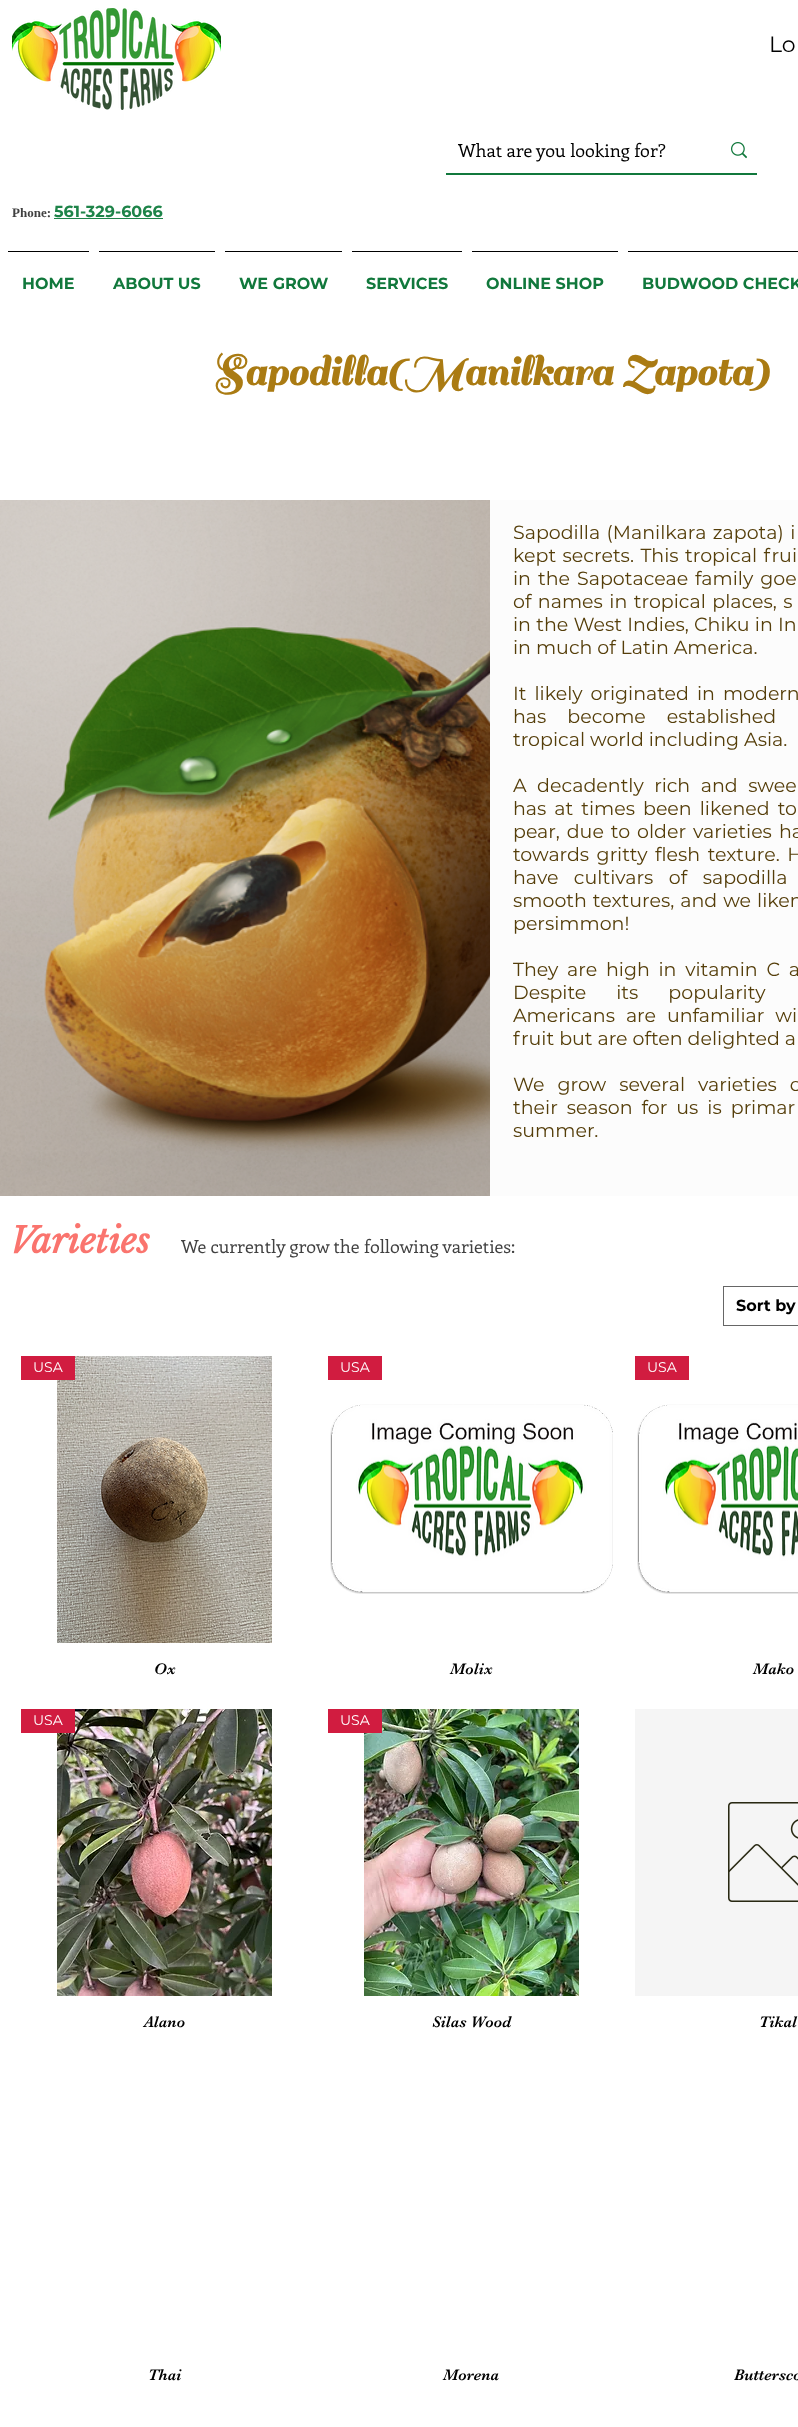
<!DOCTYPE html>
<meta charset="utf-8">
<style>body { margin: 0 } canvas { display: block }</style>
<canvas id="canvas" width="798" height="2427"></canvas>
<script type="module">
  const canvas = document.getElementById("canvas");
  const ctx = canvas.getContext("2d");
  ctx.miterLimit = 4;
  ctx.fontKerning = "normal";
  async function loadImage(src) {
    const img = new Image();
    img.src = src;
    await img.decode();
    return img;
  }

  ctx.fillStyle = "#ffffff";
  ctx.fillRect(0, 0, 798, 2427);
  ctx.drawImage(await loadImage("img1.png"), 12, 8, 209, 102);
  ctx.font = "22px Montserrat";
  ctx.fillStyle = "#000000";
  ctx.fillText("Lo", 769, 52);
  ctx.fillStyle = "#11783c";
  ctx.fillRect(446, 173, 311, 2);
  ctx.font = "18px Enriqueta";
  ctx.fillStyle = "#000000";
  ctx.fillText("What are you looking for?", 458, 157);
  ctx.drawImage(await loadImage("img2.png"), 731, 142, 16, 17);
  ctx.font = "bold 13px Liberation Serif";
  ctx.fillStyle = "#414141";
  ctx.fillText("Phone:", 12, 217);
  ctx.font = "bold 16px Montserrat";
  ctx.fillStyle = "#1e8449";
  ctx.fillText("561-329-6066", 54, 217);
  ctx.fillRect(54, 218, 109, 1);
  ctx.fillStyle = "#000000";
  ctx.fillRect(8, 251, 81, 1);
  ctx.fillStyle = "#11783c";
  ctx.fillText("HOME", 22, 289);
  ctx.fillStyle = "#000000";
  ctx.fillRect(99, 251, 116, 1);
  ctx.fillStyle = "#11783c";
  ctx.fillText("ABOUT US", 113, 289);
  ctx.fillStyle = "#000000";
  ctx.fillRect(225, 251, 117, 1);
  ctx.fillStyle = "#11783c";
  ctx.fillText("WE GROW", 239, 289);
  ctx.fillStyle = "#000000";
  ctx.fillRect(352, 251, 110, 1);
  ctx.fillStyle = "#11783c";
  ctx.fillText("SERVICES", 366, 289);
  ctx.fillStyle = "#000000";
  ctx.fillRect(472, 251, 146, 1);
  ctx.fillStyle = "#11783c";
  ctx.fillText("ONLINE SHOP", 486, 289);
  ctx.fillStyle = "#000000";
  ctx.fillRect(628, 251, 170, 1);
  ctx.fillStyle = "#11783c";
  ctx.fillText("BUDWOOD CHECK", 642, 289);
  ctx.font = "bold 45px Sail";
  ctx.fillStyle = "#aa7b13";
  ctx.fillText("Sapodilla(Manilkara Zapota)", 212, 385);
  ctx.drawImage(await loadImage("img3.png"), 0, 500, 490, 696);
  ctx.fillStyle = "#fcfcfc";
  ctx.fillRect(490, 500, 308, 696);
  ctx.wordSpacing = "1.5px";
  ctx.font = "19px Montserrat";
  ctx.fillStyle = "#553e0a";
  ctx.fillText("Sapodilla (Manilkara zapota) i", 513, 539);
  ctx.fillText("kept secrets. This tropical frui", 513, 562);
  ctx.wordSpacing = "2px";
  ctx.fillText("in the Sapotaceae family goe", 513, 585);
  ctx.wordSpacing = "1.5px";
  ctx.fillText("of names in tropical places, s", 513, 608);
  ctx.wordSpacing = "0.25px";
  ctx.fillText("in the West Indies, Chiku in In", 513, 631);
  ctx.wordSpacing = "0px";
  ctx.fillText("in much of Latin America.", 513, 654);
  ctx.wordSpacing = "3px";
  ctx.fillText("It likely originated in modern", 513, 700);
  ctx.wordSpacing = "16px";
  ctx.fillText("has become established", 513, 723);
  ctx.wordSpacing = "0px";
  ctx.fillText("tropical world including Asia.", 513, 746);
  ctx.wordSpacing = "5.5px";
  ctx.fillText("A decadently rich and swee", 513, 792);
  ctx.wordSpacing = "3px";
  ctx.fillText("has at times been likened to", 513, 815);
  ctx.wordSpacing = "2px";
  ctx.fillText("pear, due to older varieties ha", 513, 838);
  ctx.wordSpacing = "2.5px";
  ctx.fillText("towards gritty flesh texture. H", 513, 861);
  ctx.wordSpacing = "10.5px";
  ctx.fillText("have cultivars of sapodilla", 513, 884);
  ctx.wordSpacing = "1px";
  ctx.fillText("smooth textures, and we liken", 513, 907);
  ctx.wordSpacing = "0px";
  ctx.fillText("persimmon!", 513, 930);
  ctx.wordSpacing = "3.75px";
  ctx.fillText("They are high in vitamin C a", 513, 976);
  ctx.wordSpacing = "25px";
  ctx.fillText("Despite its popularity", 513, 999);
  ctx.wordSpacing = "6px";
  ctx.fillText("Americans are unfamiliar wi", 513, 1022);
  ctx.wordSpacing = "0px";
  ctx.fillText("fruit but are often delighted a", 513, 1045);
  ctx.wordSpacing = "8px";
  ctx.fillText("We grow several varieties o", 513, 1091);
  ctx.wordSpacing = "4px";
  ctx.fillText("their season for us is primar", 513, 1114);
  ctx.wordSpacing = "0px";
  ctx.fillText("summer.", 513, 1137);
  ctx.font = "italic bold 35px Libre Baskerville";
  ctx.fillStyle = "#fa746e";
  ctx.fillText("Varieties", 10, 1253);
  ctx.font = "18px Enriqueta";
  ctx.fillStyle = "#414141";
  ctx.fillText("We currently grow the following varieties:", 181, 1253);
  ctx.strokeStyle = "#666666";
  ctx.strokeRect(723.5, 1286.5, 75, 39);
  ctx.font = "bold 16px Montserrat";
  ctx.fillStyle = "#000000";
  ctx.fillText("Sort by", 736, 1311);
  ctx.drawImage(await loadImage("img4.png"), 57, 1356, 215, 287);
  ctx.fillStyle = "#d11c40";
  ctx.fillRect(21, 1356, 54, 24);
  ctx.font = "14px Montserrat";
  ctx.fillStyle = "#ffffff";
  ctx.fillText("USA", 33, 1372);
  ctx.font = "16px 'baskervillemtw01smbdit'";
  ctx.fillStyle = "#000000";
  ctx.fillText("Ox", 154, 1674);
  ctx.fillStyle = "#d11c40";
  ctx.fillRect(328, 1356, 54, 24);
  ctx.font = "14px Montserrat";
  ctx.fillStyle = "#ffffff";
  ctx.fillText("USA", 340, 1372);
  ctx.drawImage(await loadImage("img5.png"), 330, 1404, 283, 190);
  ctx.font = "16px 'baskervillemtw01smbdit'";
  ctx.fillStyle = "#000000";
  ctx.fillText("Molix", 450, 1674);
  ctx.fillStyle = "#d11c40";
  ctx.fillRect(635, 1356, 54, 24);
  ctx.font = "14px Montserrat";
  ctx.fillStyle = "#ffffff";
  ctx.fillText("USA", 647, 1372);
  ctx.drawImage(await loadImage("img6.png"), 637, 1404, 161, 190);
  ctx.font = "16px 'baskervillemtw01smbdit'";
  ctx.fillStyle = "#000000";
  ctx.fillText("Mako", 753, 1674);
  ctx.drawImage(await loadImage("img7.png"), 57, 1709, 215, 287);
  ctx.fillStyle = "#d11c40";
  ctx.fillRect(21, 1709, 54, 24);
  ctx.font = "14px Montserrat";
  ctx.fillStyle = "#ffffff";
  ctx.fillText("USA", 33, 1725);
  ctx.font = "16px 'baskervillemtw01smbdit'";
  ctx.fillStyle = "#000000";
  ctx.fillText("Alano", 144, 2027);
  ctx.drawImage(await loadImage("img8.png"), 364, 1709, 215, 287);
  ctx.fillStyle = "#d11c40";
  ctx.fillRect(328, 1709, 54, 24);
  ctx.font = "14px Montserrat";
  ctx.fillStyle = "#ffffff";
  ctx.fillText("USA", 340, 1725);
  ctx.font = "16px 'baskervillemtw01smbdit'";
  ctx.fillStyle = "#000000";
  ctx.fillText("Silas Wood", 432, 2027);
  ctx.fillStyle = "#f5f5f5";
  ctx.fillRect(635, 1709, 163, 287);
  ctx.drawImage(await loadImage("img9.png"), 728, 1802, 70, 100);
  ctx.fillStyle = "#000000";
  ctx.fillText("Tikal", 759, 2027);
  ctx.fillText("Thai", 148, 2380);
  ctx.fillText("Morena", 443, 2380);
  ctx.fillText("Buttersco", 734, 2380);
</script>
